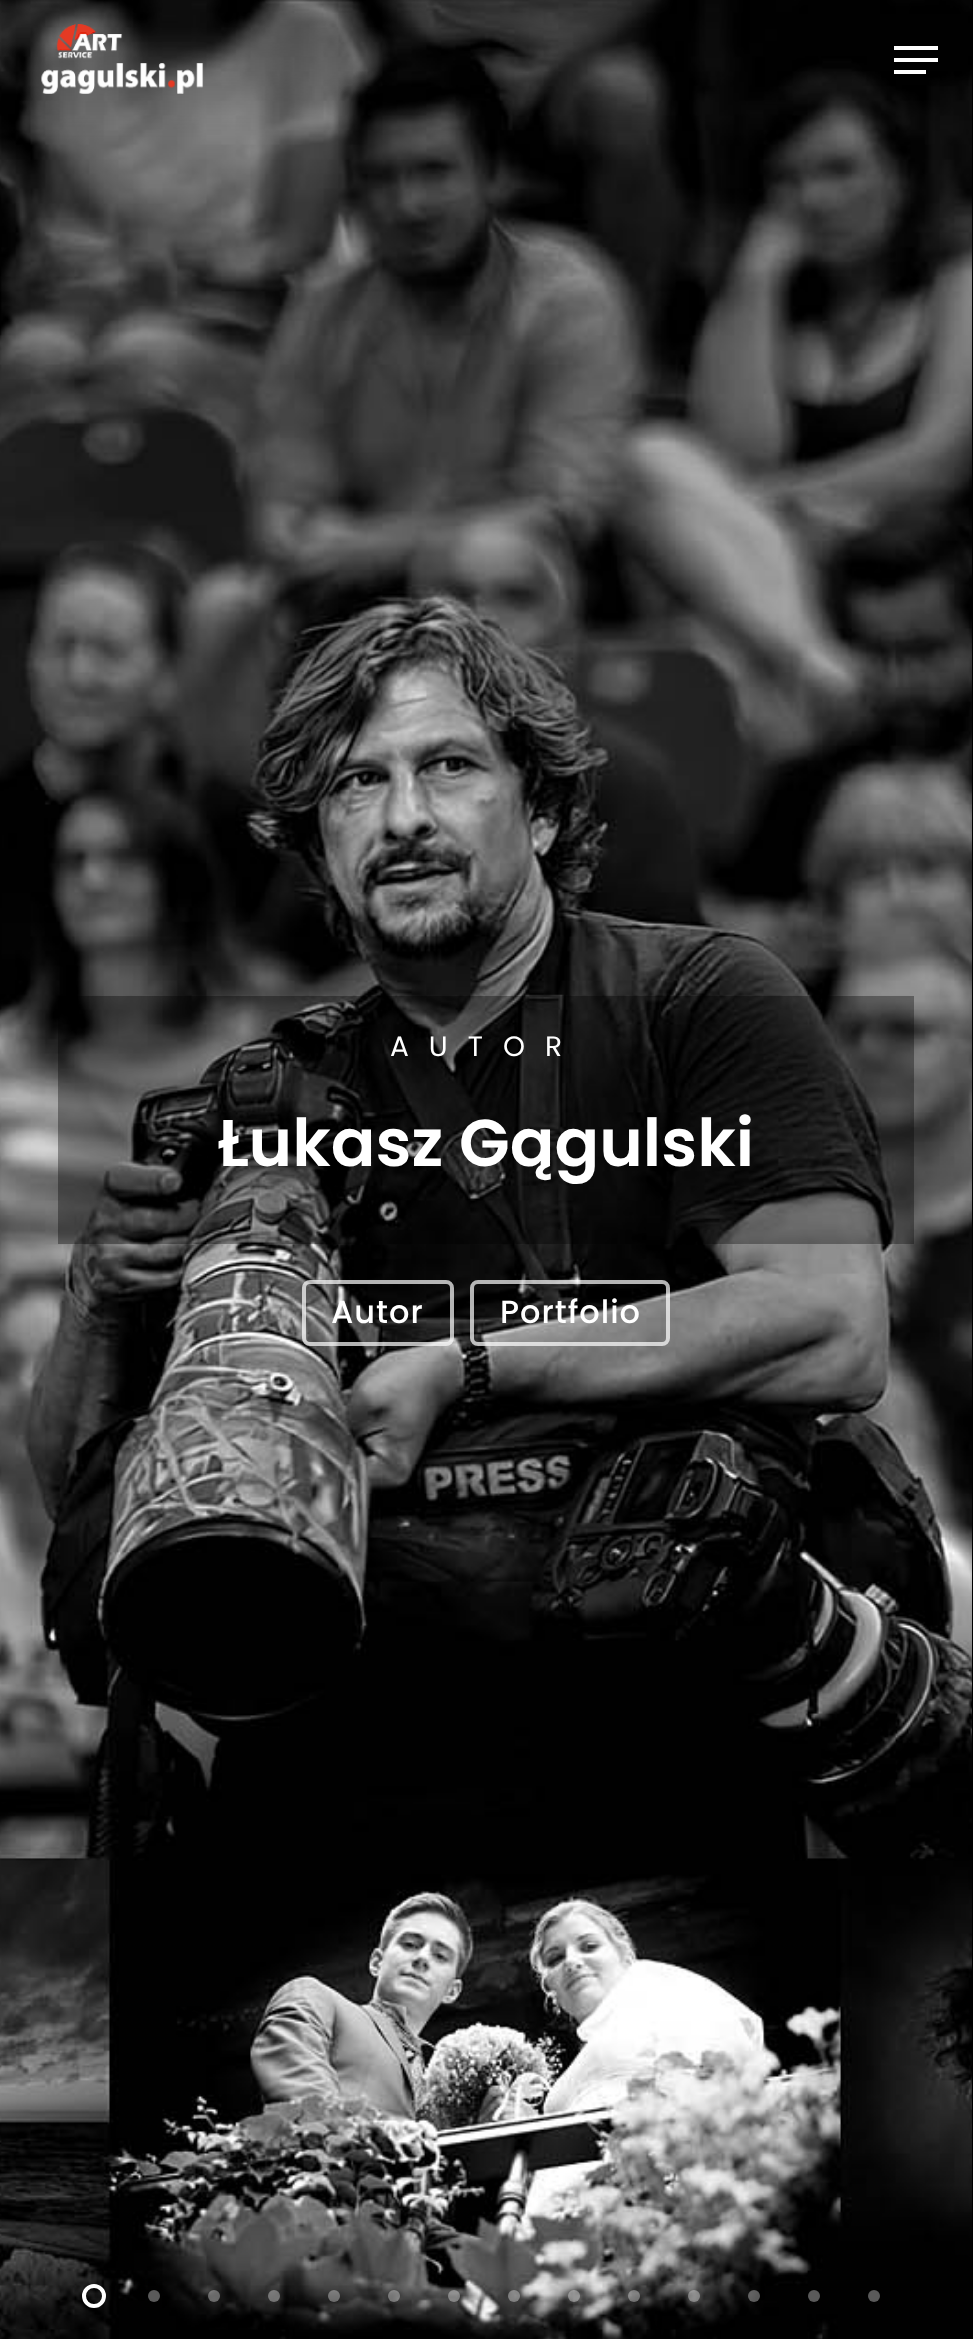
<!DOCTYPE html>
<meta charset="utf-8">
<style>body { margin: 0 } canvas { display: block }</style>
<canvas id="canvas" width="973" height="2339"></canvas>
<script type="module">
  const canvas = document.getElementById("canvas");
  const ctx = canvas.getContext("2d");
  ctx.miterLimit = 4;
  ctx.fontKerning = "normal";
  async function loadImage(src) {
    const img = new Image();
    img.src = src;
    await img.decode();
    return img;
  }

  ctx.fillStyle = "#000000";
  ctx.fillRect(0, 0, 973, 2339);
  ctx.drawImage(await loadImage("img2.png"), 0, 0, 972, 2339);
  ctx.drawImage(await loadImage("img1.png"), 41, 24, 163, 70);
  ctx.fillStyle = "#ffffff";
  ctx.fillRect(894, 46, 44, 4);
  ctx.fillRect(894, 70, 32, 4);
  ctx.fillRect(894, 58, 44, 4);
  ctx.fillStyle = "rgba(0, 0, 0, 0.34)";
  ctx.fillRect(58, 996, 856, 248);
  ctx.letterSpacing = "20px";
  ctx.font = "28px Poppins";
  ctx.fillStyle = "#ffffff";
  ctx.fillText("AUTOR", 390, 1056);
  ctx.letterSpacing = "0px";
  ctx.font = "600 66px Poppins";
  ctx.fillText("Łukasz Gągulski", 218, 1166);
  ctx.beginPath();
  ctx.roundRect(304, 1282, 148, 62, 6);
  ctx.strokeStyle = "rgba(255, 255, 255, 0.7)";
  ctx.lineWidth = 4;
  ctx.stroke();
  ctx.letterSpacing = "1px";
  ctx.font = "500 32px Poppins";
  ctx.fillText("Autor", 331, 1323);
  ctx.beginPath();
  ctx.roundRect(472, 1282, 196, 62, 6);
  ctx.stroke();
  ctx.fillText("Portfolio", 500, 1323);
  ctx.beginPath();
  ctx.arc(94, 2296, 10, 0, Math.PI * 2);
  ctx.strokeStyle = "#ffffff";
  ctx.stroke();
  ctx.fillStyle = "#5a5a5a";
  ctx.beginPath();
  ctx.arc(154, 2296, 6, 0, Math.PI * 2);
  ctx.fill();
  ctx.fillStyle = "rgba(255, 255, 255, 0.35)";
  ctx.beginPath();
  ctx.arc(214, 2296, 6, 0, Math.PI * 2);
  ctx.fill();
  ctx.beginPath();
  ctx.arc(274, 2296, 6, 0, Math.PI * 2);
  ctx.fill();
  ctx.beginPath();
  ctx.arc(334, 2296, 6, 0, Math.PI * 2);
  ctx.fill();
  ctx.beginPath();
  ctx.arc(394, 2296, 6, 0, Math.PI * 2);
  ctx.fill();
  ctx.beginPath();
  ctx.arc(454, 2296, 6, 0, Math.PI * 2);
  ctx.fill();
  ctx.beginPath();
  ctx.arc(514, 2296, 6, 0, Math.PI * 2);
  ctx.fill();
  ctx.beginPath();
  ctx.arc(574, 2296, 6, 0, Math.PI * 2);
  ctx.fill();
  ctx.beginPath();
  ctx.arc(634, 2296, 6, 0, Math.PI * 2);
  ctx.fill();
  ctx.beginPath();
  ctx.arc(694, 2296, 6, 0, Math.PI * 2);
  ctx.fill();
  ctx.beginPath();
  ctx.arc(754, 2296, 6, 0, Math.PI * 2);
  ctx.fill();
  ctx.fillStyle = "#5a5a5a";
  ctx.beginPath();
  ctx.arc(814, 2296, 6, 0, Math.PI * 2);
  ctx.fill();
  ctx.beginPath();
  ctx.arc(874, 2296, 6, 0, Math.PI * 2);
  ctx.fill();
</script>
